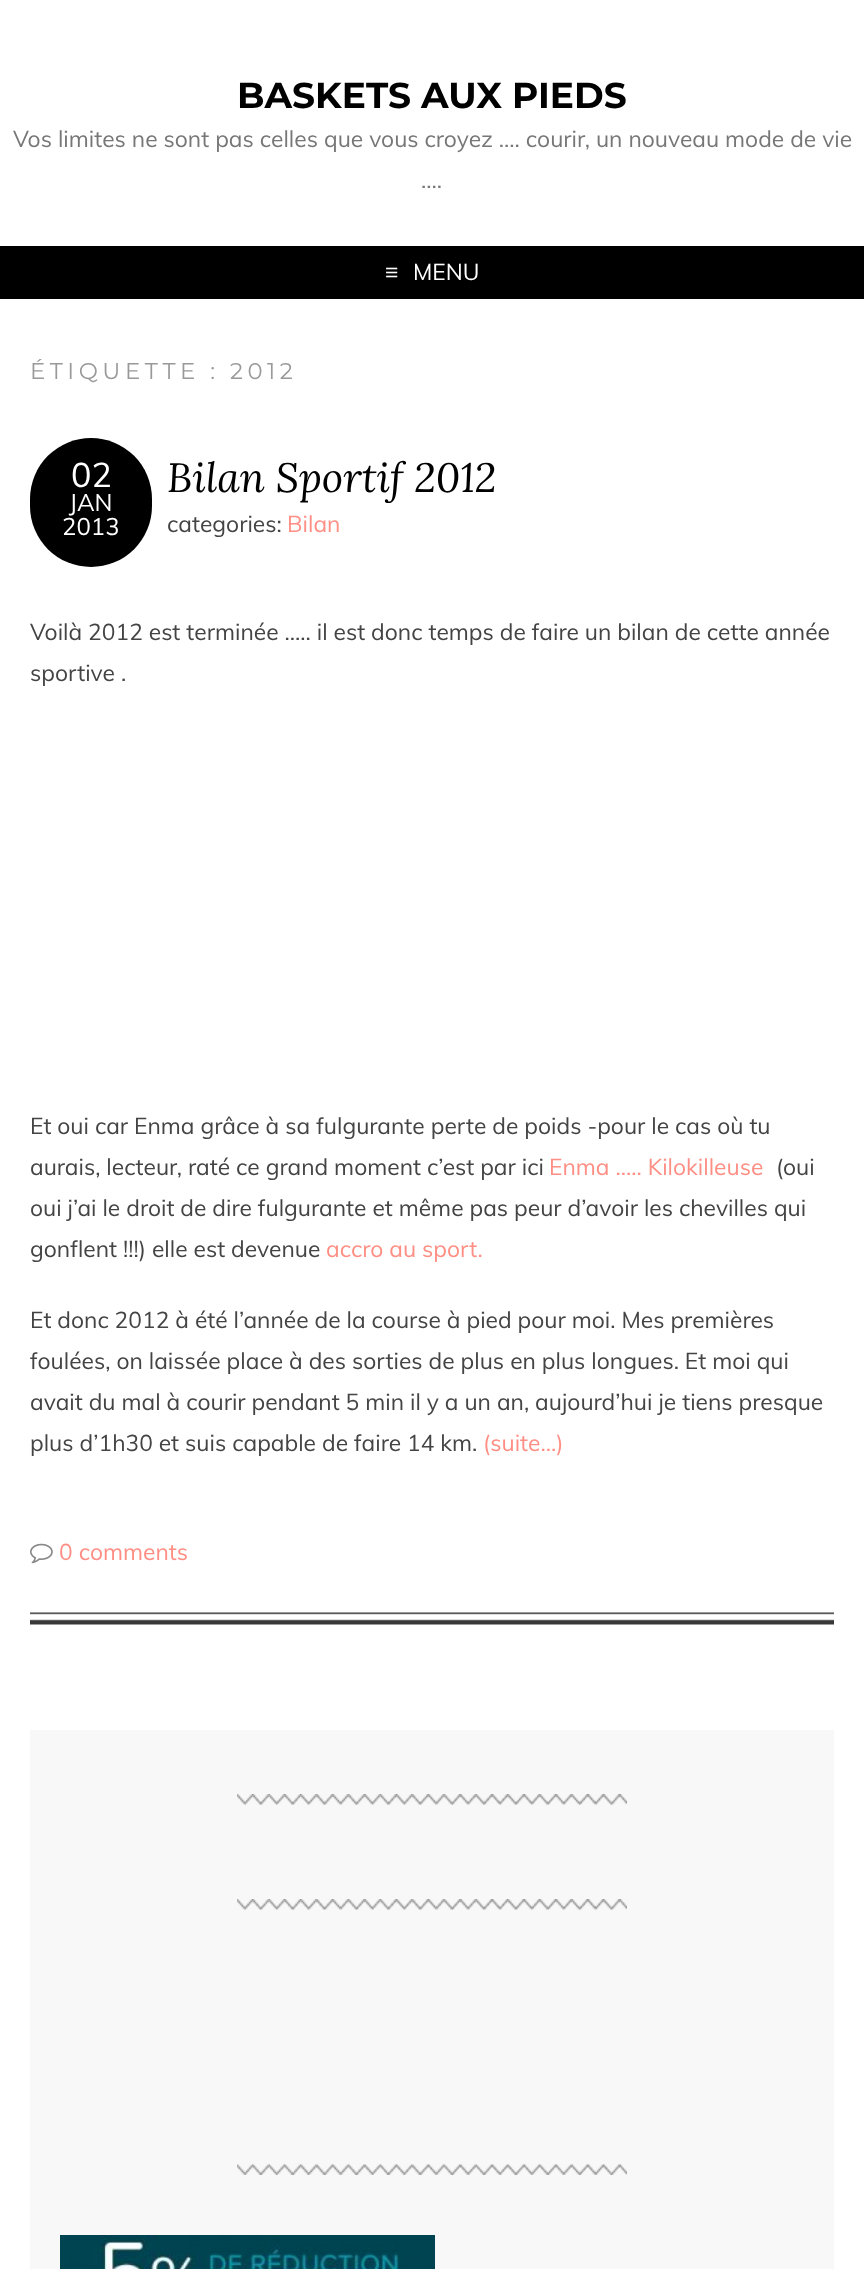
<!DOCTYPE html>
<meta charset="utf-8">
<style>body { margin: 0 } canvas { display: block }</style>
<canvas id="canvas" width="864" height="2269"></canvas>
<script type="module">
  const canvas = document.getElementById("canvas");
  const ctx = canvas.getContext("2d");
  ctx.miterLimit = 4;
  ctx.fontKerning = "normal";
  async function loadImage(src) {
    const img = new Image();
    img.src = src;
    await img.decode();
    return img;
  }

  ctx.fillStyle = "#ffffff";
  ctx.fillRect(0, 0, 864, 2269);
  ctx.font = "bold 36px Montserrat";
  ctx.fillStyle = "#000000";
  ctx.fillText("BASKETS AUX PIEDS", 237, 108);
  ctx.font = "22.8px Muli";
  ctx.fillStyle = "#777777";
  ctx.fillText("Vos limites ne sont pas celles que vous croyez …. courir, un nouveau mode de vie", 13, 147);
  ctx.fillText("….", 421, 188);
  ctx.fillStyle = "#000000";
  ctx.fillRect(0, 246, 864, 53);
  ctx.font = "22.8px Liberation Sans";
  ctx.fillStyle = "#ffffff";
  ctx.fillText("≡", 385, 280);
  ctx.font = "22.8px Muli";
  ctx.fillText("MENU", 413, 280);
  ctx.letterSpacing = "4.5px";
  ctx.font = "22.8px Montserrat";
  ctx.fillStyle = "#999999";
  ctx.fillText("ÉTIQUETTE : 2012", 30, 379);
  ctx.drawImage(await loadImage("img1.png"), 30, 1612, 804, 13);
  ctx.fillStyle = "#000000";
  ctx.beginPath();
  ctx.roundRect(30, 438, 122, 129, 61);
  ctx.fill();
  ctx.letterSpacing = "0px";
  ctx.font = "34px Muli";
  ctx.fillStyle = "#ffffff";
  ctx.fillText("02", 71, 487);
  ctx.font = "24px Muli";
  ctx.fillText("JAN", 69, 511);
  ctx.fillText("2013", 62, 535);
  ctx.font = "italic 41px Lora";
  ctx.fillStyle = "#000000";
  ctx.fillText("Bilan Sportif 2012", 167, 492);
  ctx.font = "22.8px Muli";
  ctx.fillStyle = "#444444";
  ctx.fillText("categories:", 167, 532);
  ctx.fillStyle = "#ff8f85";
  ctx.fillText("Bilan", 287, 532);
  ctx.fillStyle = "#444444";
  ctx.fillText("Voilà 2012 est terminée ….. il est donc temps de faire un bilan de cette année", 30, 640);
  ctx.fillText("sportive .", 30, 681);
  ctx.fillText("Et oui car Enma grâce à sa fulgurante perte de poids -pour le cas où tu", 30, 1134);
  ctx.fillText("aurais, lecteur, raté ce grand moment c’est par ici", 30, 1175);
  ctx.fillStyle = "#ff8f85";
  ctx.fillText("Enma ….. Kilokilleuse", 549, 1175);
  ctx.fillStyle = "#444444";
  ctx.fillText("(oui", 776, 1175);
  ctx.fillText("oui j’ai le droit de dire fulgurante et même pas peur d’avoir les chevilles qui", 30, 1216);
  ctx.fillText("gonflent !!!) elle est devenue", 30, 1257);
  ctx.fillStyle = "#ff8f85";
  ctx.fillText("accro au sport.", 326, 1257);
  ctx.fillStyle = "#444444";
  ctx.fillText("Et donc 2012 à été l’année de la course à pied pour moi. Mes premières", 30, 1328);
  ctx.fillText("foulées, on laissée place à des sorties de plus en plus longues. Et moi qui", 30, 1369);
  ctx.fillText("avait du mal à courir pendant 5 min il y a un an, aujourd’hui je tiens presque", 30, 1410);
  ctx.fillText("plus d’1h30 et suis capable de faire 14 km.", 30, 1451);
  ctx.fillStyle = "#ff8f85";
  ctx.fillText("(suite…)", 483, 1451);
  ctx.drawImage(await loadImage("img2.png"), 30, 1543, 23, 21);
  ctx.fillText("0 comments", 59, 1560);
  ctx.fillStyle = "#f8f8f8";
  ctx.fillRect(30, 1730, 804, 539);
  ctx.drawImage(await loadImage("img3.png"), 237, 1794, 390, 11);
  ctx.drawImage(await loadImage("img3.png"), 237, 1899, 390, 11);
  ctx.drawImage(await loadImage("img4.png"), 237, 2164, 390, 11);
  ctx.drawImage(await loadImage("img5.png"), 60, 2235, 375, 34);
</script>
